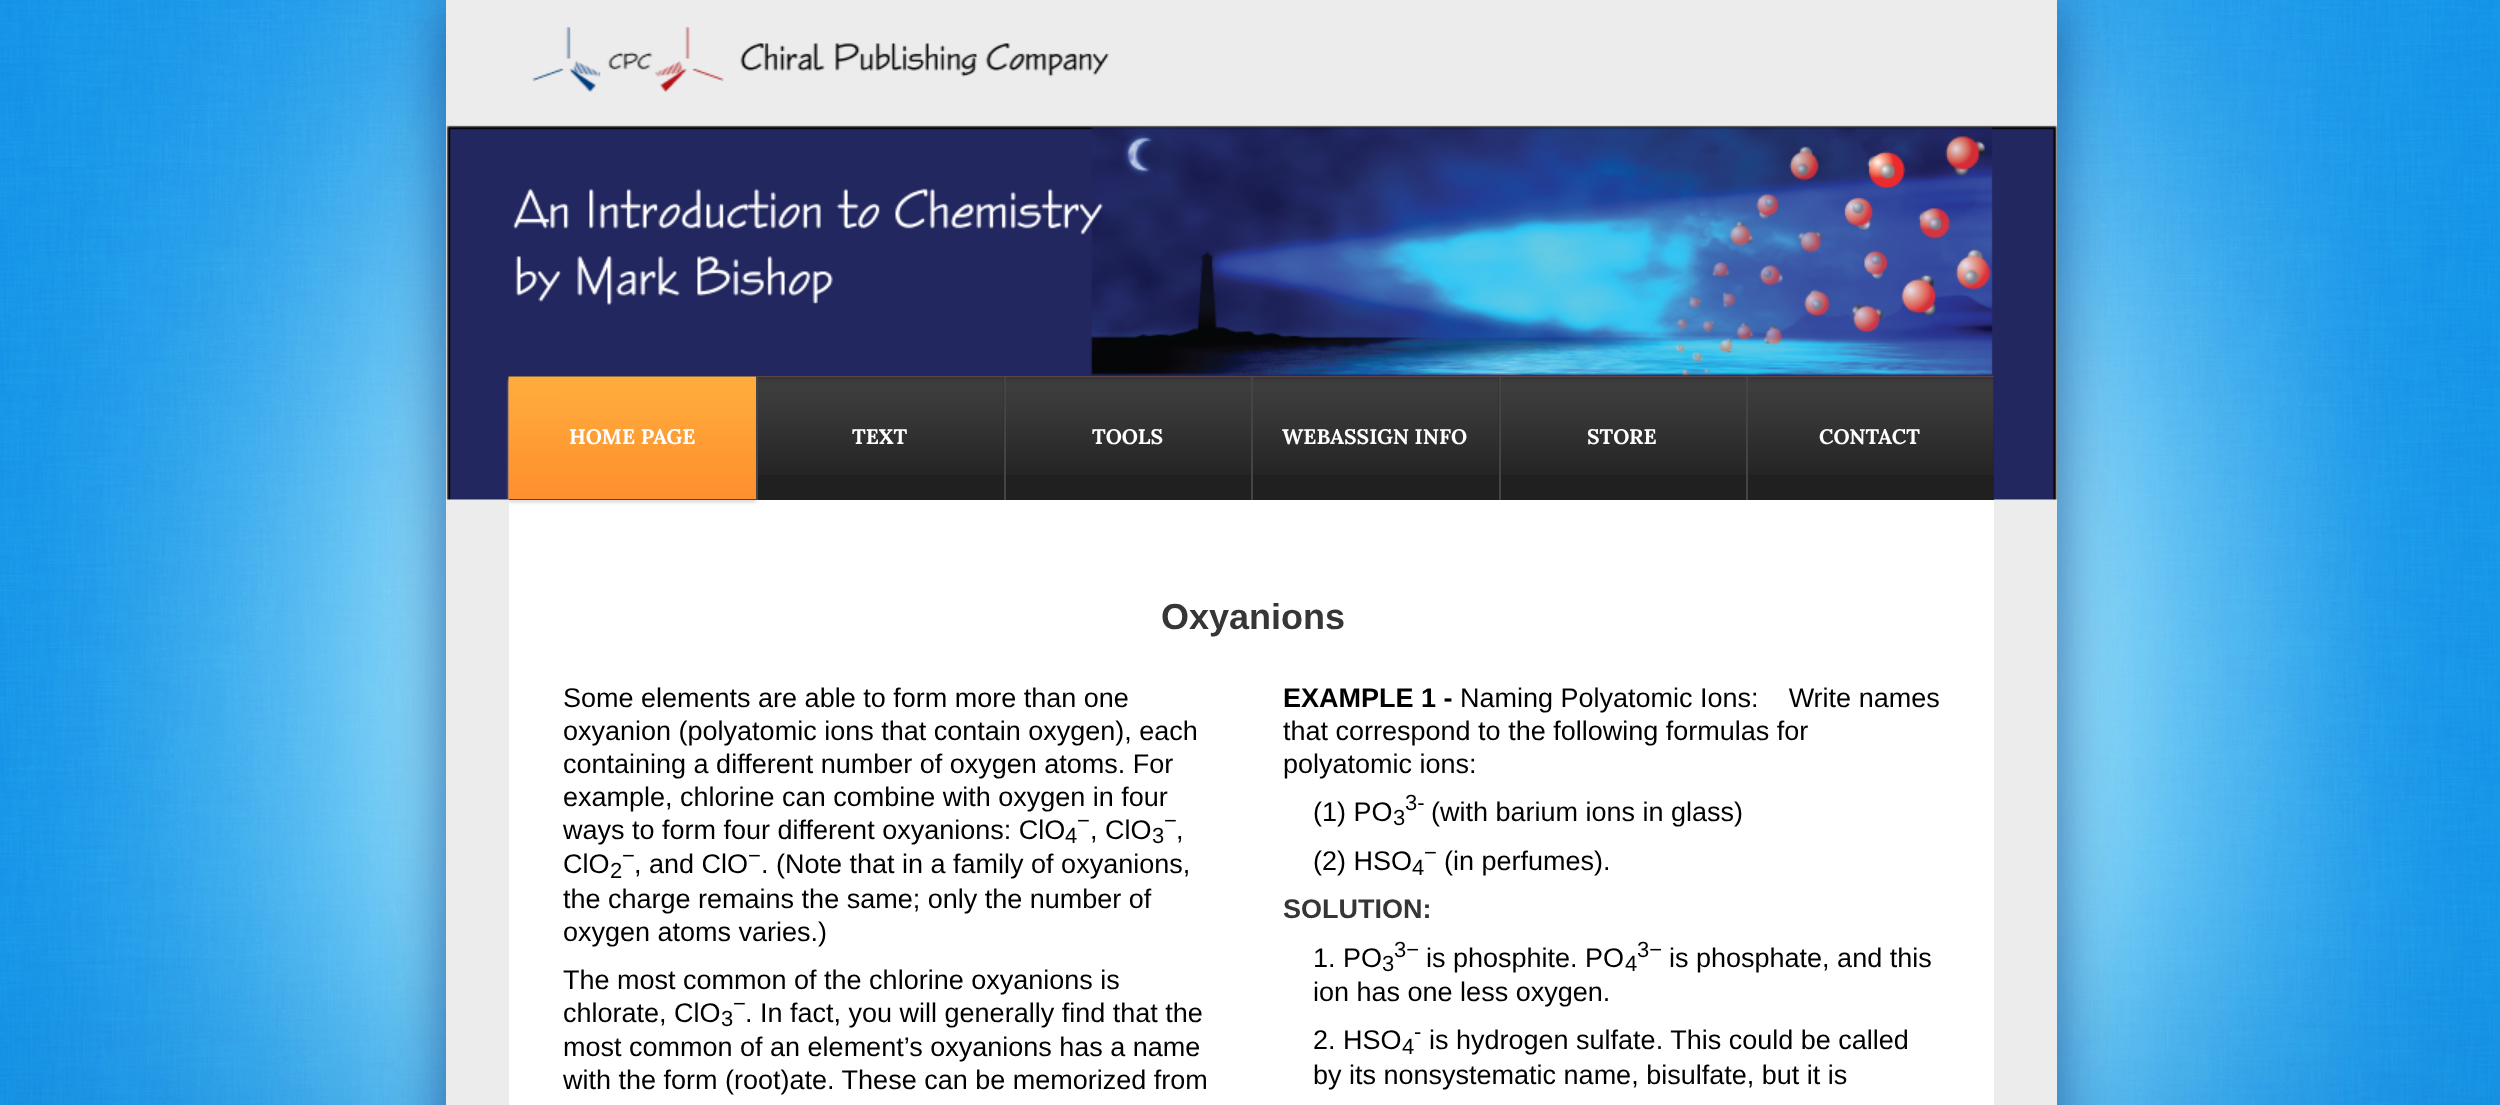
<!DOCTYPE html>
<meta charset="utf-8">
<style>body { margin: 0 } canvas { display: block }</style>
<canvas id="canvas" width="2500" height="1105"></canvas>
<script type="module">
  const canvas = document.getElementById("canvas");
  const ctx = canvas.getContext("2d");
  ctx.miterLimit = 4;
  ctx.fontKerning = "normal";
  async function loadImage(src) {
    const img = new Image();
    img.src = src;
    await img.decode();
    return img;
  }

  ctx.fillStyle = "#ffffff";
  ctx.fillRect(0, 0, 2500, 1105);
  ctx.drawImage(await loadImage("img1.png"), 0, 0, 2500, 1105);
  ctx.fillStyle = "rgba(0, 55, 131, 0.7)";
  ctx.filter = "blur(28.5px)";
  ctx.beginPath();
  ctx.rect(446, 0, 1611, 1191);
  ctx.fill();
  ctx.filter = "none";
  ctx.fillStyle = "#ececec";
  ctx.fillRect(446, 0, 1611, 1105);
  ctx.drawImage(await loadImage("img2.png"), 532, 27, 577, 65);
  ctx.drawImage(await loadImage("img3.png"), 446, 125, 1611, 375);
  ctx.fillStyle = "#ffffff";
  ctx.fillRect(509, 500, 1485, 605);
  ctx.fillStyle = "#e0e0e0";
  ctx.filter = "blur(1.5px)";
  ctx.beginPath();
  ctx.rect(509, 380, 247, 123);
  ctx.fill();
  ctx.filter = "none";
  ctx.fillStyle = "#202020";
  ctx.fillRect(509, 499, 247, 1);
  ctx.drawImage(await loadImage("img4.png"), 508, 376, 248, 124);
  ctx.font = "bold 21px Lora";
  ctx.fillStyle = "#ffffff";
  ctx.fillText("HOME PAGE", 569, 444);
  ctx.fillStyle = "#202020";
  ctx.fillRect(758, 377, 246, 123);
  ctx.drawImage(await loadImage("img5.png"), 756, 376, 248, 99);
  ctx.fillStyle = "#444444";
  ctx.fillRect(756, 377, 2, 123);
  ctx.fillStyle = "#ffffff";
  ctx.fillText("TEXT", 852, 444);
  ctx.fillStyle = "#202020";
  ctx.fillRect(1006, 475, 245, 25);
  ctx.drawImage(await loadImage("img6.png"), 1003, 376, 248, 99);
  ctx.fillStyle = "#444444";
  ctx.fillRect(1004, 377, 2, 123);
  ctx.fillStyle = "#ffffff";
  ctx.fillText("TOOLS", 1092, 444);
  ctx.fillStyle = "#202020";
  ctx.fillRect(1253, 377, 246, 123);
  ctx.drawImage(await loadImage("img7.png"), 1251, 376, 248, 99);
  ctx.fillStyle = "#444444";
  ctx.fillRect(1251, 377, 2, 123);
  ctx.fillStyle = "#ffffff";
  ctx.fillText("WEBASSIGN INFO", 1282, 444);
  ctx.fillStyle = "#202020";
  ctx.fillRect(1501, 475, 245, 25);
  ctx.drawImage(await loadImage("img8.png"), 1498, 376, 248, 99);
  ctx.fillStyle = "#444444";
  ctx.fillRect(1499, 377, 2, 123);
  ctx.fillStyle = "#ffffff";
  ctx.fillText("STORE", 1587, 444);
  ctx.fillStyle = "#202020";
  ctx.fillRect(1748, 377, 246, 123);
  ctx.drawImage(await loadImage("img7.png"), 1746, 376, 248, 99);
  ctx.fillStyle = "#444444";
  ctx.fillRect(1746, 377, 2, 123);
  ctx.fillStyle = "#ffffff";
  ctx.fillText("CONTACT", 1819, 444);
  ctx.font = "bold 36px Liberation Sans";
  ctx.fillStyle = "#363636";
  ctx.fillText("Oxyanions", 1161, 629);
  ctx.font = "27px Liberation Sans";
  ctx.fillStyle = "#000000";
  ctx.fillText("Some elements are able to form more than one", 563, 707);
  ctx.fillText("oxyanion (polyatomic ions that contain oxygen), each", 563, 740);
  ctx.fillText("containing a different number of oxygen atoms. For", 563, 773);
  ctx.fillText("example, chlorine can combine with oxygen in four", 563, 806);
  ctx.fillText("ways to form four different oxyanions: ClO", 563, 839);
  ctx.font = "22px Liberation Sans";
  ctx.fillText("−", 1077, 828);
  ctx.font = "27px Liberation Sans";
  ctx.fillText(", ClO", 1090, 839);
  ctx.font = "22px Liberation Sans";
  ctx.fillText("−", 1164, 828);
  ctx.fillText("4", 1065, 843);
  ctx.fillText("3", 1152, 843);
  ctx.font = "27px Liberation Sans";
  ctx.fillText(",", 1176, 839);
  ctx.fillText("ClO", 563, 873);
  ctx.font = "22px Liberation Sans";
  ctx.fillText("−", 622, 863);
  ctx.font = "27px Liberation Sans";
  ctx.fillText(", and ClO", 634, 873);
  ctx.font = "22px Liberation Sans";
  ctx.fillText("−", 748, 863);
  ctx.font = "27px Liberation Sans";
  ctx.fillText(". (Note that in a family of oxyanions,", 761, 873);
  ctx.font = "22px Liberation Sans";
  ctx.fillText("2", 610, 878);
  ctx.font = "27px Liberation Sans";
  ctx.fillText("the charge remains the same; only the number of", 563, 908);
  ctx.fillText("oxygen atoms varies.)", 563, 941);
  ctx.fillText("The most common of the chlorine oxyanions is", 563, 989);
  ctx.fillText("chlorate, ClO", 563, 1022);
  ctx.font = "22px Liberation Sans";
  ctx.fillText("−", 733, 1011);
  ctx.font = "27px Liberation Sans";
  ctx.fillText(". In fact, you will generally find that the", 745, 1022);
  ctx.font = "22px Liberation Sans";
  ctx.fillText("3", 721, 1026);
  ctx.font = "27px Liberation Sans";
  ctx.fillText("most common of an element’s oxyanions has a name", 563, 1056);
  ctx.fillText("with the form (root)ate. These can be memorized from", 563, 1089);
  ctx.font = "bold 27px Liberation Sans";
  ctx.fillText("EXAMPLE 1 -", 1283, 707);
  ctx.font = "27px Liberation Sans";
  ctx.fillText("Naming Polyatomic Ions:    Write names", 1460, 707);
  ctx.fillText("that correspond to the following formulas for", 1283, 740);
  ctx.fillText("polyatomic ions:", 1283, 773);
  ctx.fillText("(1) PO", 1313, 821);
  ctx.font = "22px Liberation Sans";
  ctx.fillText("3", 1393, 825);
  ctx.fillText("3-", 1405, 810);
  ctx.font = "27px Liberation Sans";
  ctx.fillText("(with barium ions in glass)", 1431, 821);
  ctx.fillText("(2) HSO", 1313, 870);
  ctx.font = "22px Liberation Sans";
  ctx.fillText("−", 1424, 860);
  ctx.font = "27px Liberation Sans";
  ctx.fillText("(in perfumes).", 1444, 870);
  ctx.font = "22px Liberation Sans";
  ctx.fillText("4", 1412, 875);
  ctx.font = "bold 27px Liberation Sans";
  ctx.fillStyle = "#363636";
  ctx.fillText("SOLUTION:", 1283, 918);
  ctx.font = "27px Liberation Sans";
  ctx.fillStyle = "#000000";
  ctx.fillText("1. PO", 1313, 967);
  ctx.font = "22px Liberation Sans";
  ctx.fillText("3", 1382, 971);
  ctx.fillText("3−", 1394, 957);
  ctx.font = "27px Liberation Sans";
  ctx.fillText("is phosphite. PO", 1426, 967);
  ctx.font = "22px Liberation Sans";
  ctx.fillText("4", 1625, 971);
  ctx.fillText("3−", 1637, 957);
  ctx.font = "27px Liberation Sans";
  ctx.fillText("is phosphate, and this", 1669, 967);
  ctx.fillText("ion has one less oxygen.", 1313, 1001);
  ctx.fillText("2. HSO", 1313, 1049);
  ctx.font = "22px Liberation Sans";
  ctx.fillText("-", 1414, 1039);
  ctx.font = "27px Liberation Sans";
  ctx.fillText("is hydrogen sulfate. This could be called", 1429, 1049);
  ctx.font = "22px Liberation Sans";
  ctx.fillText("4", 1402, 1054);
  ctx.font = "27px Liberation Sans";
  ctx.fillText("by its nonsystematic name, bisulfate, but it is", 1313, 1084);
</script>
